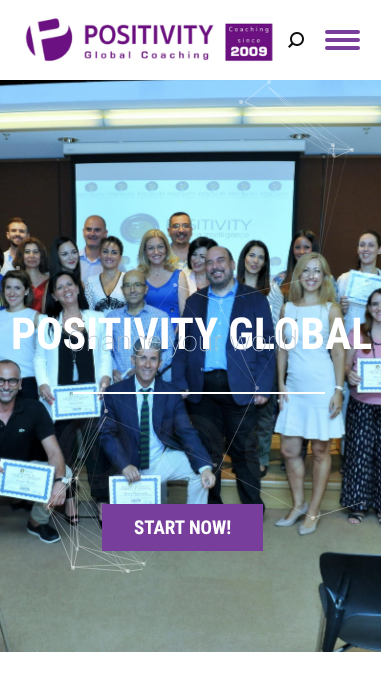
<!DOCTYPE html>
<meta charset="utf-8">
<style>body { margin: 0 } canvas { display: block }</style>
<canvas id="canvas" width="381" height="695"></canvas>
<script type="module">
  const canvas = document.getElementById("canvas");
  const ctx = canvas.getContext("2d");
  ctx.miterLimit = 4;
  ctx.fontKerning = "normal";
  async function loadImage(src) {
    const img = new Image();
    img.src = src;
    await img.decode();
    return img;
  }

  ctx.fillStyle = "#ffffff";
  ctx.fillRect(0, 0, 381, 695);
  ctx.drawImage(await loadImage("img1.png"), 25, 17, 248, 45);
  ctx.drawImage(await loadImage("img2.png"), 288, 32, 16, 16);
  ctx.fillStyle = "#773f9b";
  ctx.beginPath();
  ctx.roundRect(325, 30, 35, 4, 2);
  ctx.fill();
  ctx.beginPath();
  ctx.roundRect(325, 38, 35, 4, 2);
  ctx.fill();
  ctx.beginPath();
  ctx.roundRect(325, 46, 35, 4, 2);
  ctx.fill();
  ctx.drawImage(await loadImage("img3.png"), 0, 80, 381, 572);
  ctx.drawImage(await loadImage("img4.png"), 16, 80, 350, 494);
  ctx.font = "bold 44px Roboto Condensed";
  ctx.fillStyle = "#ffffff";
  ctx.fillText("POSITIVITY GLOBAL", 11, 349);
  ctx.font = "100 28.5px Roboto";
  ctx.fillStyle = "#aabdcf";
  ctx.fillText("Change your world", 67, 351);
  ctx.fillStyle = "#ffffff";
  ctx.fillRect(73, 392, 252, 2);
  ctx.drawImage(await loadImage("img5.png"), 57, 414, 263, 76);
  ctx.fillStyle = "#773f9b";
  ctx.fillRect(102, 504, 161, 47);
  ctx.font = "bold 19px Roboto Condensed";
  ctx.fillStyle = "#ffffff";
  ctx.fillText("START NOW!", 134, 534);
</script>
